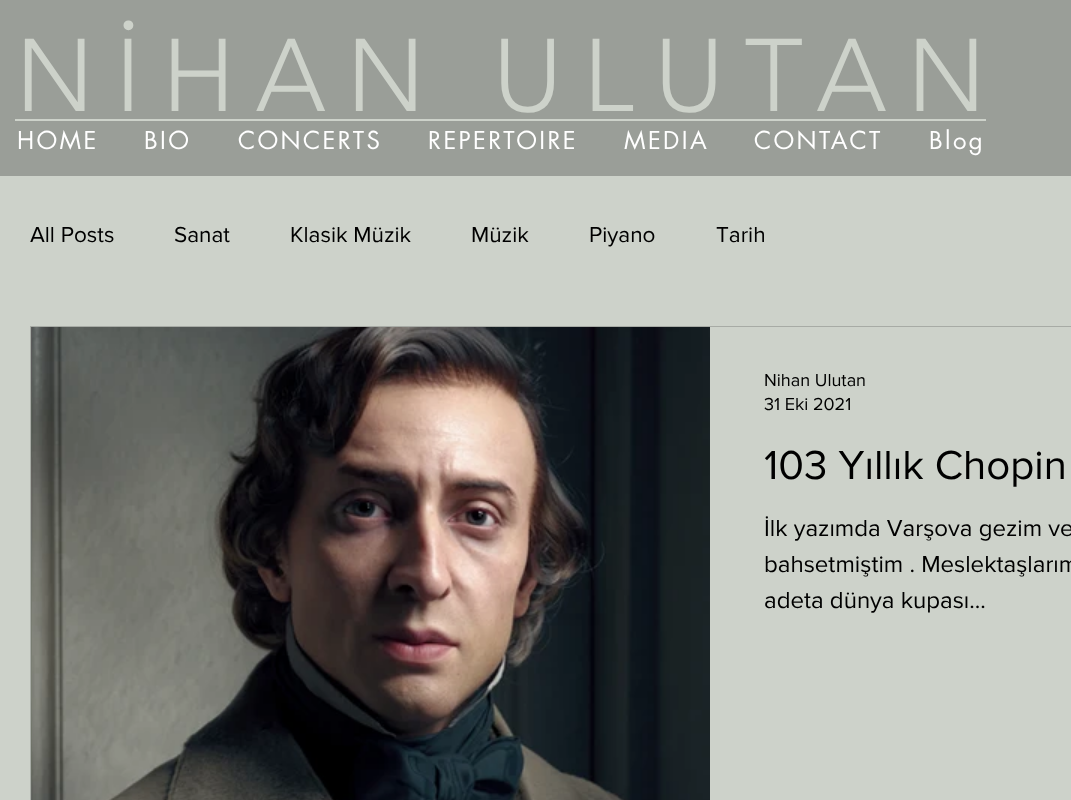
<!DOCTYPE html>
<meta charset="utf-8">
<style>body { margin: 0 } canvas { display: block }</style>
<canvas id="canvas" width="1071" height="800"></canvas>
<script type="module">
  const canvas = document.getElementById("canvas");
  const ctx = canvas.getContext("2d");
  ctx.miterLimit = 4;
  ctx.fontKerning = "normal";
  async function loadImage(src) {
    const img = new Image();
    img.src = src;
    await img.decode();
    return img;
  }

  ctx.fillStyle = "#9a9e98";
  ctx.fillRect(0, 0, 1071, 800);
  ctx.letterSpacing = "20.4px";
  ctx.font = "300 102px 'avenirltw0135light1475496'";
  ctx.fillStyle = "#cdd2ca";
  ctx.fillText("NİHAN ULUTAN", 15, 111);
  ctx.fillRect(15, 119, 971, 2);
  ctx.letterSpacing = "2.4px";
  ctx.font = "24px futura";
  ctx.fillStyle = "#ffffff";
  ctx.fillText("HOME", 17, 149);
  ctx.fillText("BIO", 144, 149);
  ctx.fillText("CONCERTS", 238, 149);
  ctx.fillText("REPERTOIRE", 428, 149);
  ctx.fillText("MEDIA", 624, 149);
  ctx.fillText("CONTACT", 754, 149);
  ctx.fillText("Blog", 929, 149);
  ctx.fillStyle = "#cdd2ca";
  ctx.fillRect(0, 176, 1071, 624);
  ctx.letterSpacing = "0px";
  ctx.font = "22.5px 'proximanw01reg'";
  ctx.fillStyle = "#000000";
  ctx.fillText("All Posts", 30, 242);
  ctx.fillText("Sanat", 174, 242);
  ctx.fillText("Klasik Müzik", 290, 242);
  ctx.fillText("Müzik", 471, 242);
  ctx.fillText("Piyano", 589, 242);
  ctx.fillText("Tarih", 716, 242);
  ctx.strokeStyle = "#a7aba5";
  ctx.lineWidth = 2;
  ctx.strokeRect(31, 327, 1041, 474);
  ctx.drawImage(await loadImage("img1.png"), 31, 327, 1, 473);
  ctx.drawImage(await loadImage("img2.png"), 32, 327, 678, 473);
  ctx.fillStyle = "#cdd2ca";
  ctx.fillRect(710, 327, 361, 1);
  ctx.font = "18px 'proximanw01reg'";
  ctx.fillStyle = "#000000";
  ctx.fillText("Nihan Ulutan", 764, 386);
  ctx.fillText("31 Eki 2021", 764, 410);
  ctx.font = "42px 'proximanw01reg'";
  ctx.fillText("103 Yıllık Chopin", 764, 479);
  ctx.font = "24px 'proximanw01reg'";
  ctx.fillText("İlk yazımda Varşova gezim ve", 764, 536);
  ctx.fillText("bahsetmiştim . Meslektaşlarım", 764, 572);
  ctx.fillText("adeta dünya kupası...", 764, 608);
</script>
